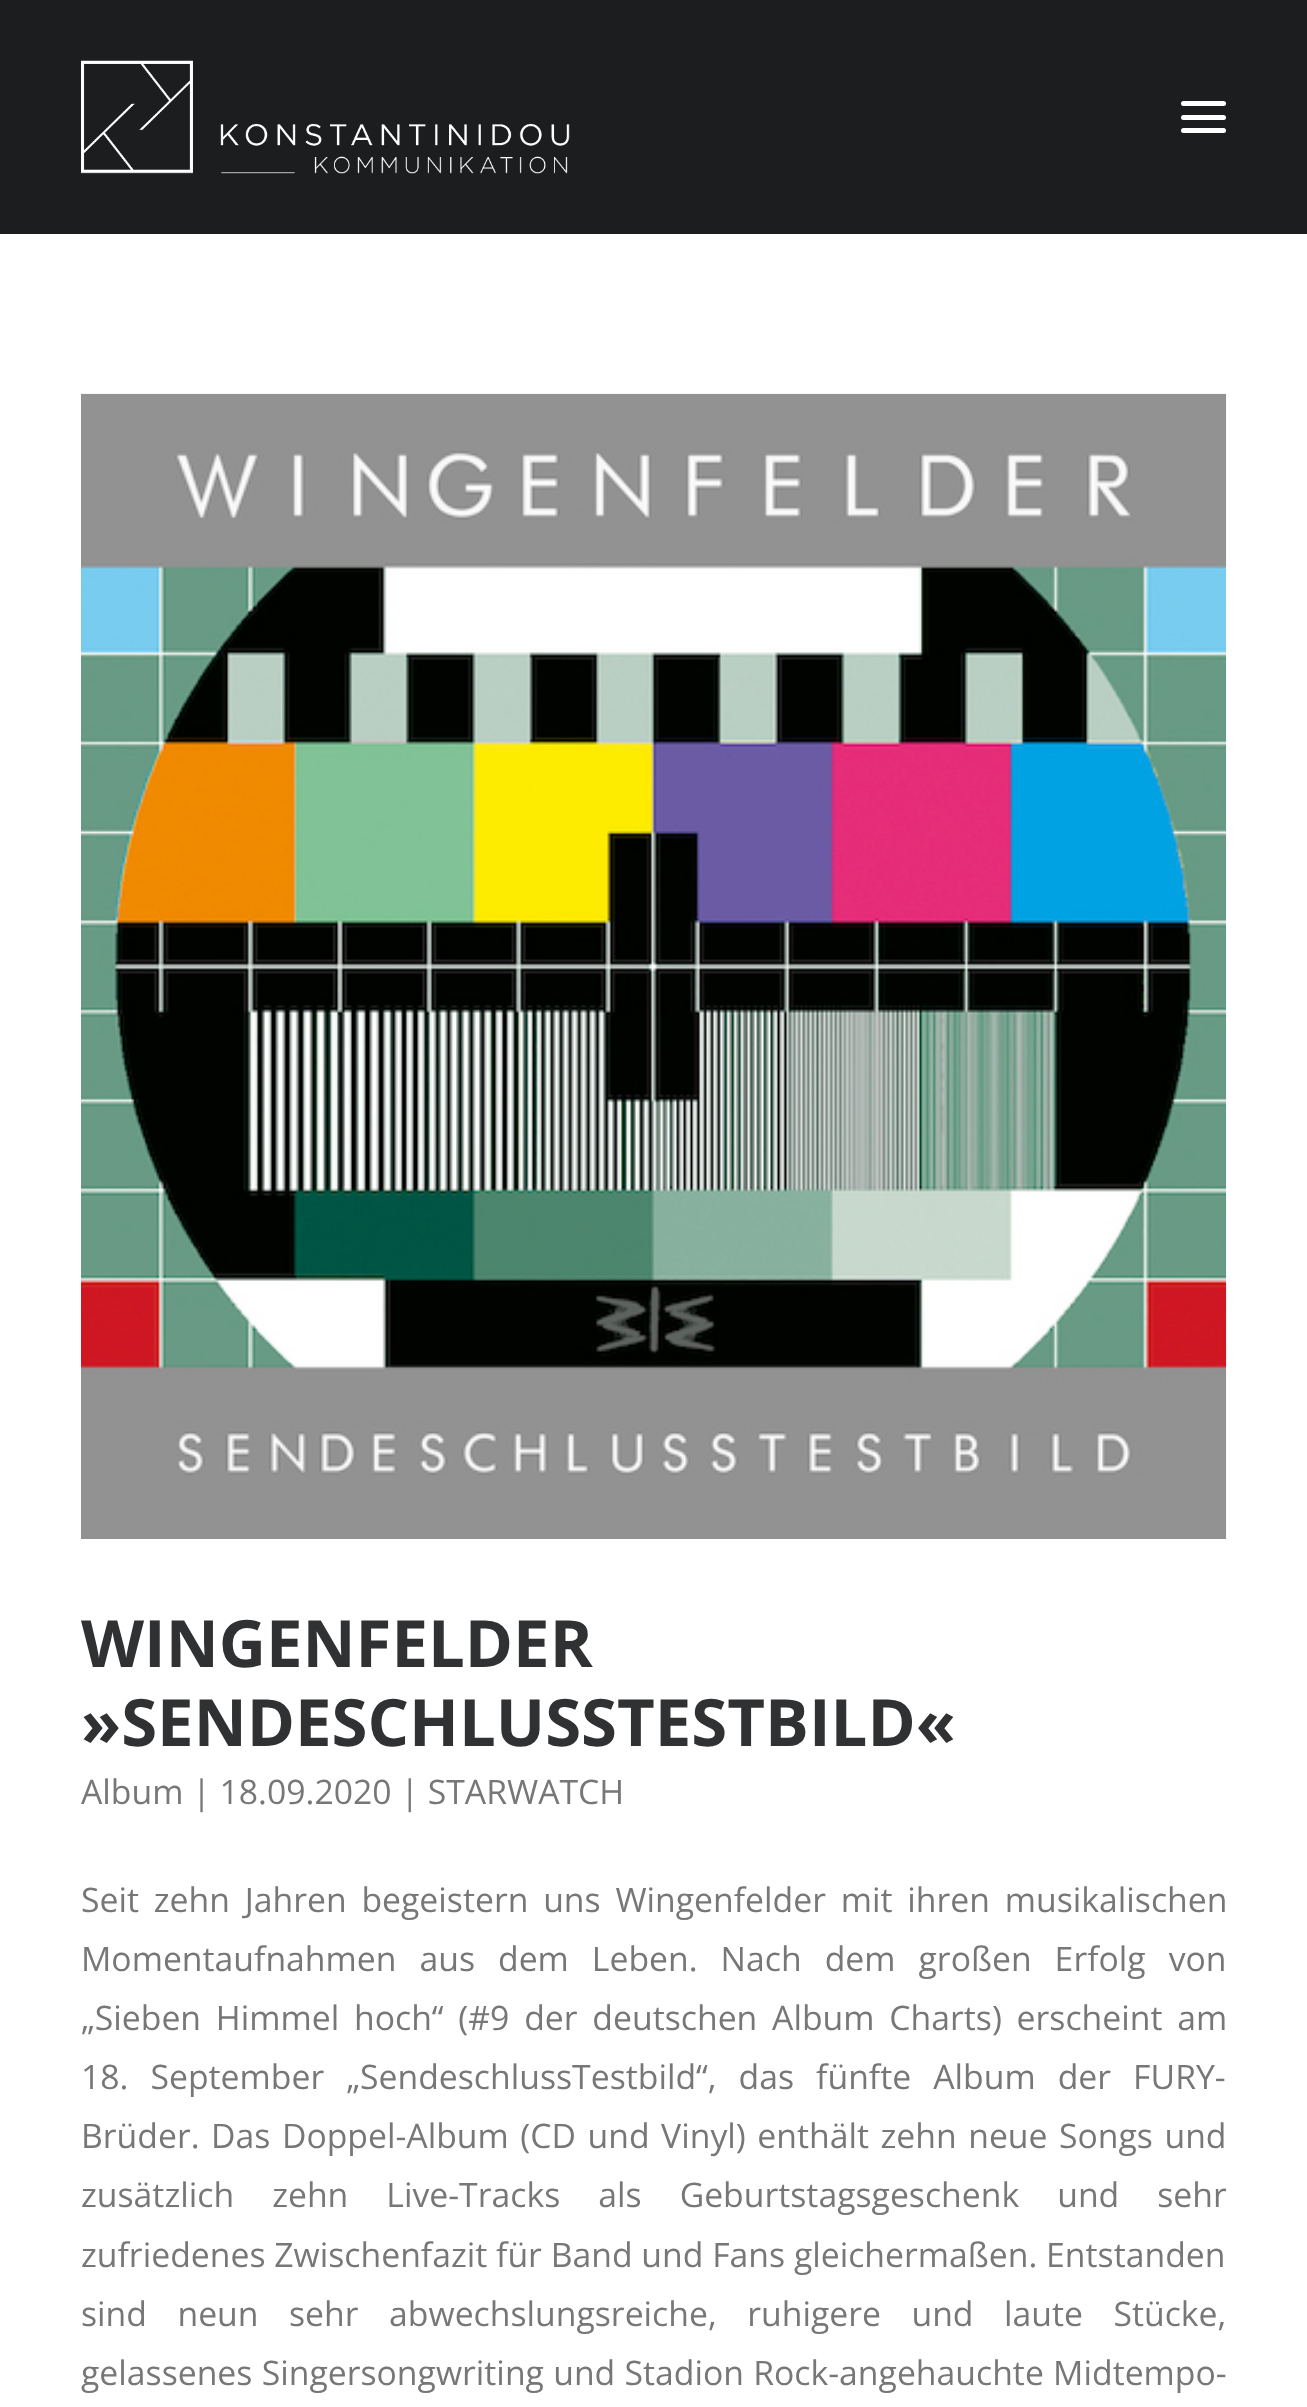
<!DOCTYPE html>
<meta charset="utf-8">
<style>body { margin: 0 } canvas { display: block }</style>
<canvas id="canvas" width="1307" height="2407"></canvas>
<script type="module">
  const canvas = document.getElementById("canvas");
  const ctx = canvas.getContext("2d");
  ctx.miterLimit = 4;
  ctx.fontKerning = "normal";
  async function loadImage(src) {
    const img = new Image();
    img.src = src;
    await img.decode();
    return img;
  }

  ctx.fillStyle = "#ffffff";
  ctx.fillRect(0, 0, 1307, 2407);
  ctx.fillStyle = "#1b1d1f";
  ctx.fillRect(0, 0, 1307, 234);
  ctx.drawImage(await loadImage("img1.png"), 81, 60, 489, 114);
  ctx.fillStyle = "#ffffff";
  ctx.beginPath();
  ctx.roundRect(1181, 115, 45, 5, 2.5);
  ctx.fill();
  ctx.beginPath();
  ctx.roundRect(1181, 101, 45, 5, 2.5);
  ctx.fill();
  ctx.beginPath();
  ctx.roundRect(1181, 128, 45, 5, 2.5);
  ctx.fill();
  ctx.drawImage(await loadImage("img2.png"), 81, 393, 1146, 1146);
  ctx.font = "bold 65.25px Open Sans";
  ctx.fillStyle = "#303133";
  ctx.fillText("WINGENFELDER", 81, 1667);
  ctx.fillText("»SENDESCHLUSSTESTBILD«", 81, 1746);
  ctx.font = "33.75px Open Sans";
  ctx.fillStyle = "#777777";
  ctx.fillText("Album | 18.09.2020 | STARWATCH", 81, 1804);
  ctx.wordSpacing = "6px";
  ctx.fillText("Seit zehn Jahren begeistern uns Wingenfelder mit ihren musikalischen", 81, 1912);
  ctx.wordSpacing = "14.25px";
  ctx.fillText("Momentaufnahmen aus dem Leben. Nach dem großen Erfolg von", 81, 1971);
  ctx.wordSpacing = "6px";
  ctx.fillText("„Sieben Himmel hoch“ (#9 der deutschen Album Charts) erscheint am", 81, 2030);
  ctx.wordSpacing = "13.25px";
  ctx.fillText("18. September „SendeschlussTestbild“, das fünfte Album der FURY-", 81, 2089);
  ctx.wordSpacing = "2.75px";
  ctx.fillText("Brüder. Das Doppel-Album (CD und Vinyl) enthält zehn neue Songs und", 81, 2148);
  ctx.wordSpacing = "29.25px";
  ctx.fillText("zusätzlich zehn Live-Tracks als Geburtstagsgeschenk und sehr", 81, 2207);
  ctx.wordSpacing = "0px";
  ctx.fillText("zufriedenes Zwischenfazit für Band und Fans gleichermaßen. Entstanden", 81, 2267);
  ctx.wordSpacing = "21.75px";
  ctx.fillText("sind neun sehr abwechslungsreiche, ruhigere und laute Stücke,", 81, 2326);
  ctx.wordSpacing = "0.5px";
  ctx.fillText("gelassenes Singersongwriting und Stadion Rock-angehauchte Midtempo-", 81, 2385);
</script>
